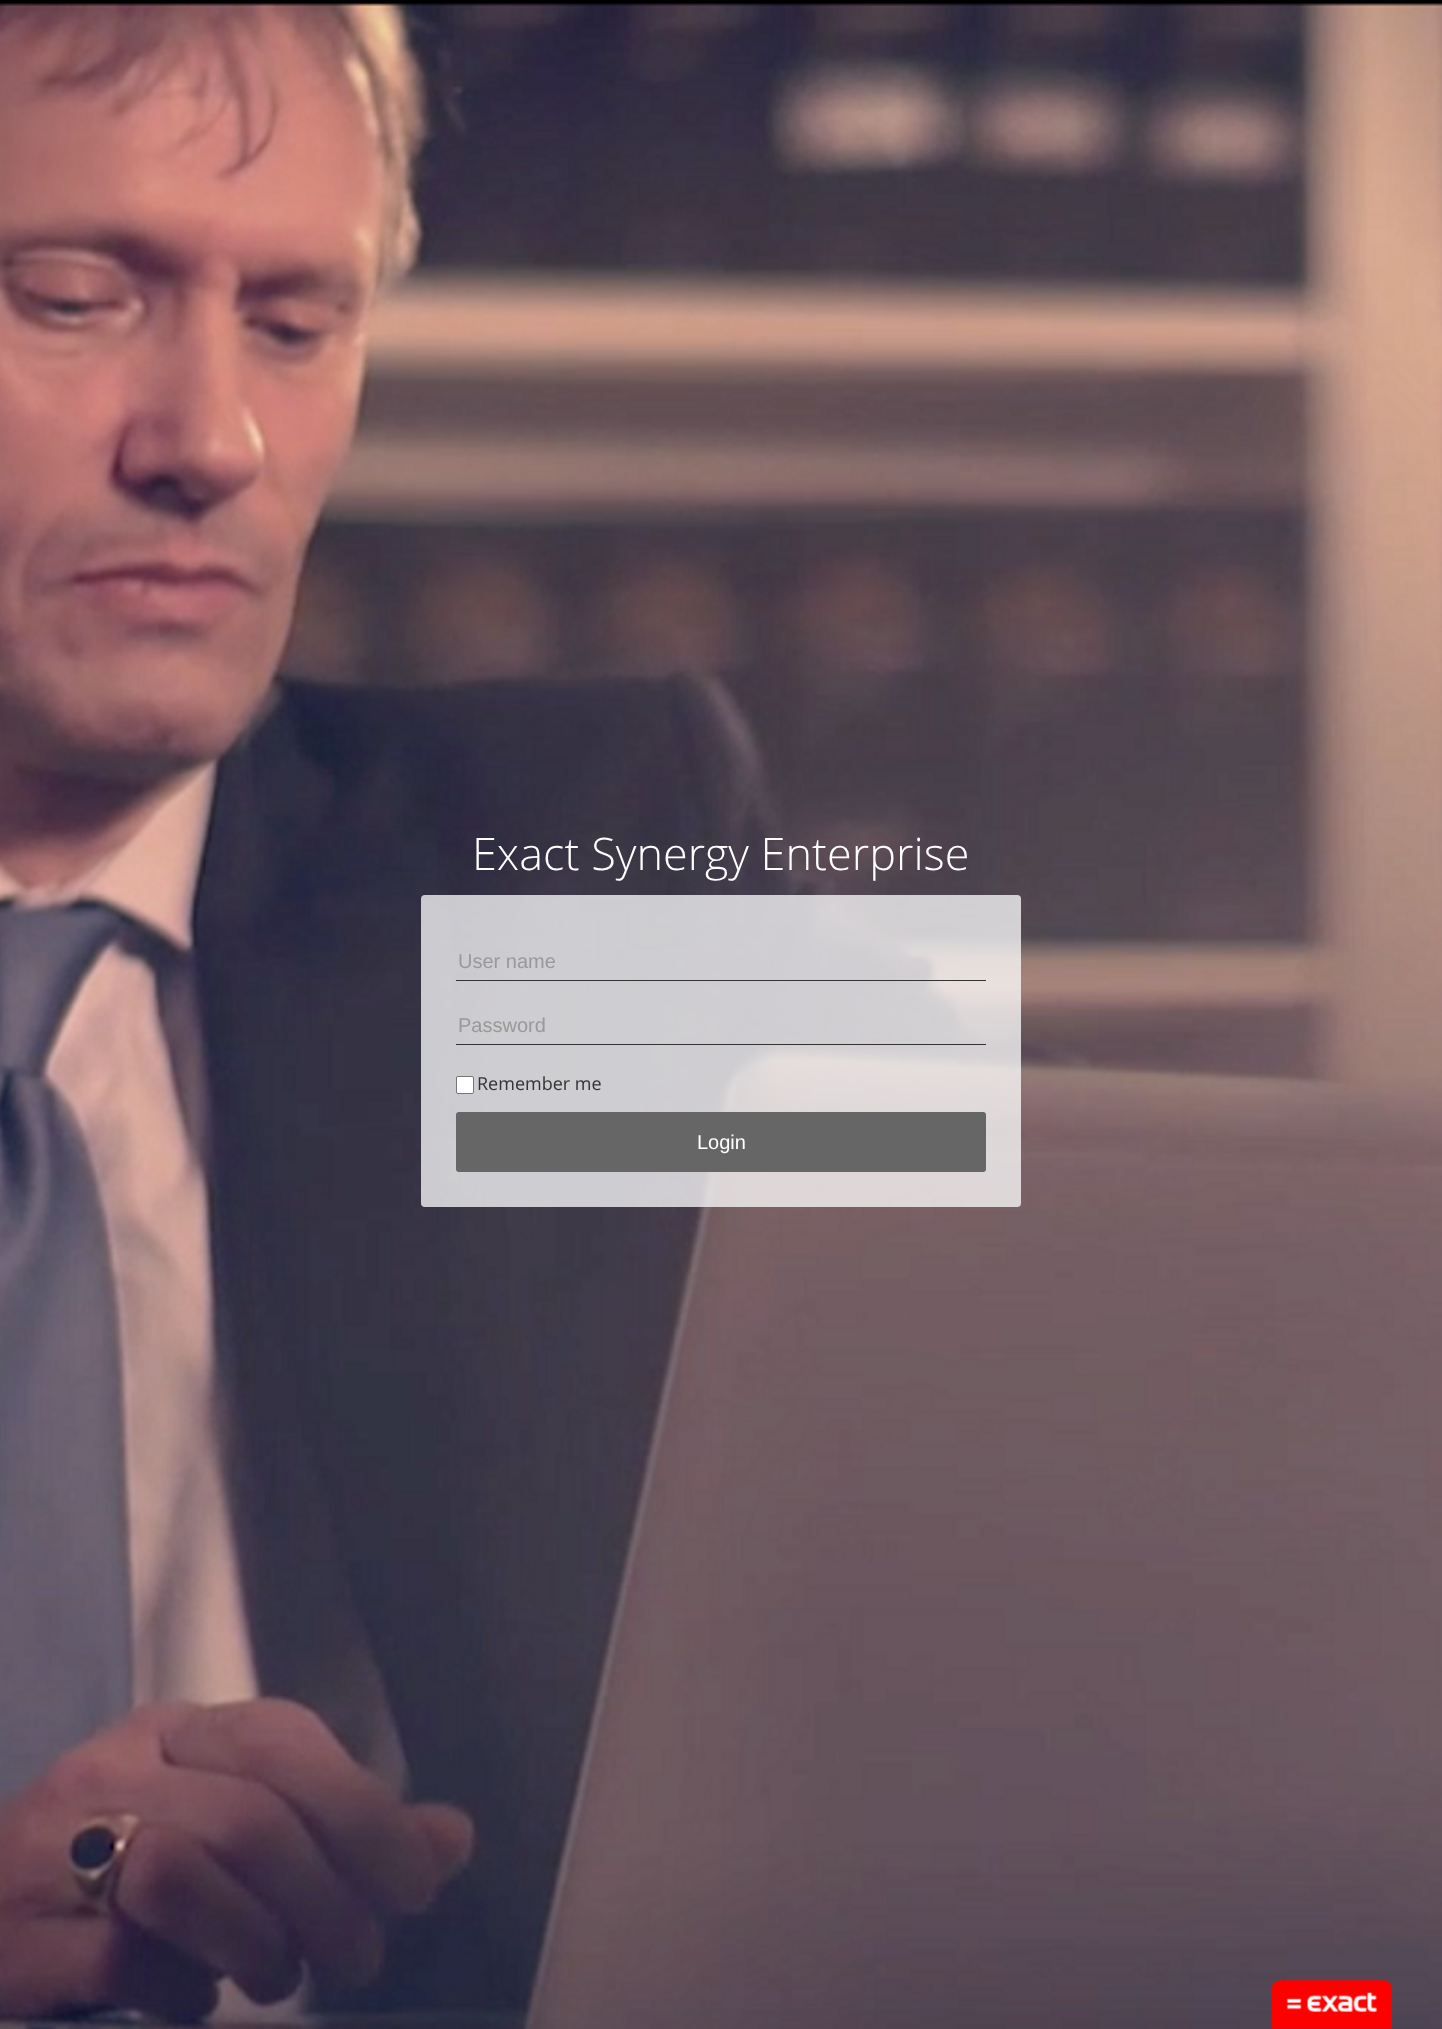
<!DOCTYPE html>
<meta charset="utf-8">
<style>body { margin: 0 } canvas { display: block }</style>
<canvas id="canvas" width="1442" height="2029"></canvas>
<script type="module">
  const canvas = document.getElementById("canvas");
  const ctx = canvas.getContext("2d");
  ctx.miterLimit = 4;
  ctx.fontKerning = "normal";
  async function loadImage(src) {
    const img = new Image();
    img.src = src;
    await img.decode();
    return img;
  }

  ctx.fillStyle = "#ffffff";
  ctx.fillRect(0, 0, 1442, 2029);
  ctx.drawImage(await loadImage("img1.png"), 0, 0, 1442, 2029);
  ctx.font = "300 45px Open Sans";
  ctx.fillText("Exact Synergy Enterprise", 472, 870);
  ctx.fillStyle = "rgba(255, 255, 255, 0.75)";
  ctx.beginPath();
  ctx.roundRect(421, 895, 600, 312, 4);
  ctx.fill();
  ctx.fillStyle = "#333333";
  ctx.fillRect(456, 980, 530, 1);
  ctx.font = "20px Liberation Sans";
  ctx.fillStyle = "#999999";
  ctx.fillText("User name", 458, 968);
  ctx.fillStyle = "#333333";
  ctx.fillRect(456, 1044, 530, 1);
  ctx.fillStyle = "#999999";
  ctx.fillText("Password", 458, 1032);
  ctx.fillStyle = "#ffffff";
  ctx.beginPath();
  ctx.roundRect(456.5, 1076.5, 17, 17, 1.5);
  ctx.fill();
  ctx.strokeStyle = "#767676";
  ctx.stroke();
  ctx.font = "18px Open Sans";
  ctx.fillStyle = "#333333";
  ctx.fillText("Remember me", 477, 1090);
  ctx.fillStyle = "#666666";
  ctx.beginPath();
  ctx.roundRect(456, 1112, 530, 60, 3);
  ctx.fill();
  ctx.font = "20px Liberation Sans";
  ctx.fillStyle = "#ffffff";
  ctx.fillText("Login", 697, 1149);
  ctx.drawImage(await loadImage("img2.png"), 1272, 1979, 120, 50);
</script>
